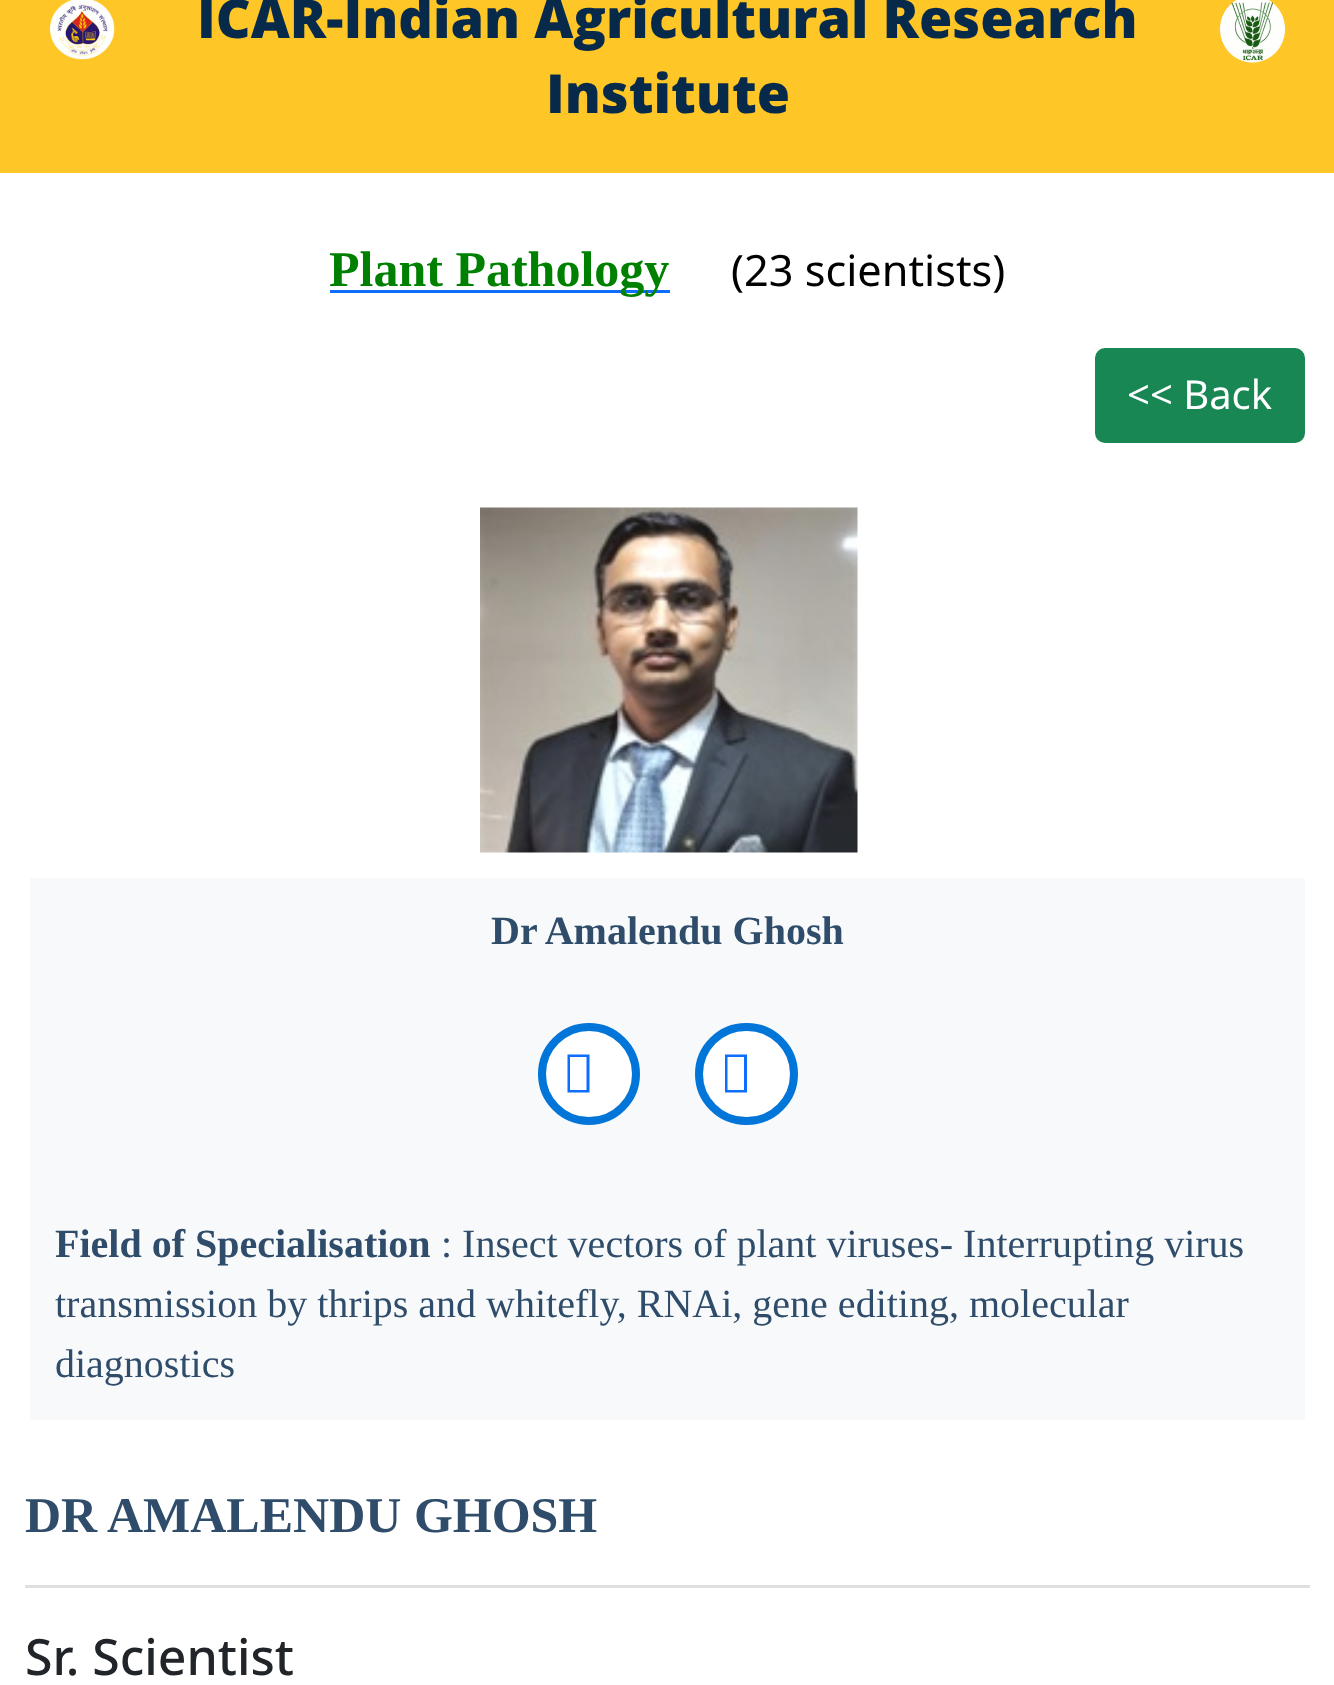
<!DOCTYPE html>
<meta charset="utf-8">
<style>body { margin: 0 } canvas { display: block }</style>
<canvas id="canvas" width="1334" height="1685"></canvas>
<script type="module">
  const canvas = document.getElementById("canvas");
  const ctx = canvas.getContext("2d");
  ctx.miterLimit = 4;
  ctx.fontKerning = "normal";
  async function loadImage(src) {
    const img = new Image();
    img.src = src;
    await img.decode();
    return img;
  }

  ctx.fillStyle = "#ffffff";
  ctx.fillRect(0, 0, 1334, 1685);
  ctx.fillStyle = "#ffc627";
  ctx.fillRect(0, 0, 1334, 173);
  ctx.drawImage(await loadImage("img1.png"), 50, 0, 65, 60);
  ctx.font = "800 53.9px Open Sans";
  ctx.fillStyle = "#082a4a";
  ctx.fillText("ICAR-Indian Agricultural Research", 197, 38);
  ctx.fillText("Institute", 546, 113);
  ctx.drawImage(await loadImage("img2.png"), 1220, 0, 65, 63);
  ctx.fillStyle = "#0d6efd";
  ctx.fillRect(330, 290, 340, 3);
  ctx.font = "bold 50px Liberation Serif";
  ctx.fillStyle = "#008000";
  ctx.fillText("Plant Pathology", 329, 286);
  ctx.font = "43.25px Noto Sans";
  ctx.fillStyle = "#000000";
  ctx.fillText("(23 scientists)", 731, 286);
  ctx.fillStyle = "#198754";
  ctx.beginPath();
  ctx.roundRect(1096.5, 349.5, 207, 92, 8.5);
  ctx.fill();
  ctx.strokeStyle = "#198754";
  ctx.lineWidth = 3;
  ctx.stroke();
  ctx.font = "40px Noto Sans";
  ctx.fillStyle = "#ffffff";
  ctx.fillText("<< Back", 1127, 409);
  ctx.drawImage(await loadImage("img3.png"), 480, 507, 378, 346);
  ctx.fillStyle = "#f8f9fa";
  ctx.fillRect(30, 878, 1275, 542);
  ctx.font = "bold 40px Liberation Serif";
  ctx.fillStyle = "#2f4d6a";
  ctx.fillText("Dr Amalendu Ghosh", 491, 944);
  ctx.fillStyle = "#ffffff";
  ctx.beginPath();
  ctx.arc(589, 1074, 47, 0, Math.PI * 2);
  ctx.fill();
  ctx.strokeStyle = "#0275d8";
  ctx.lineWidth = 8;
  ctx.stroke();
  ctx.fillStyle = "#0d6efd";
  ctx.beginPath();
  ctx.moveTo(567.5, 1092.5);
  ctx.lineTo(567.5, 1054.5);
  ctx.lineTo(589.5, 1054.5);
  ctx.lineTo(589.5, 1092.5);
  ctx.closePath();
  ctx.moveTo(570, 1090);
  ctx.lineTo(586.5, 1090);
  ctx.lineTo(586.5, 1057);
  ctx.lineTo(570, 1057);
  ctx.closePath();
  ctx.fill();
  ctx.fillStyle = "#ffffff";
  ctx.beginPath();
  ctx.roundRect(699, 1027, 95, 94, 47);
  ctx.fill();
  ctx.stroke();
  ctx.fillStyle = "#0d6efd";
  ctx.beginPath();
  ctx.moveTo(725, 1092.5);
  ctx.lineTo(725, 1054.5);
  ctx.lineTo(747, 1054.5);
  ctx.lineTo(747, 1092.5);
  ctx.closePath();
  ctx.moveTo(727.5, 1090);
  ctx.lineTo(744, 1090);
  ctx.lineTo(744, 1057);
  ctx.lineTo(727.5, 1057);
  ctx.closePath();
  ctx.fill();
  ctx.fillStyle = "#2f4d6a";
  ctx.fillText("Field of Specialisation", 55, 1257);
  ctx.font = "40px Liberation Serif";
  ctx.fillText(": Insect vectors of plant viruses- Interrupting virus", 441, 1257);
  ctx.fillText("transmission by thrips and whitefly, RNAi, gene editing, molecular", 55, 1317);
  ctx.fillText("diagnostics", 55, 1377);
  ctx.font = "bold 50px Liberation Serif";
  ctx.fillText("DR AMALENDU GHOSH", 25, 1532);
  ctx.fillStyle = "#dfdfdf";
  ctx.fillRect(25, 1585, 1285, 3);
  ctx.font = "500 50px Noto Sans";
  ctx.fillStyle = "#212529";
  ctx.fillText("Sr. Scientist", 25, 1675);
</script>
